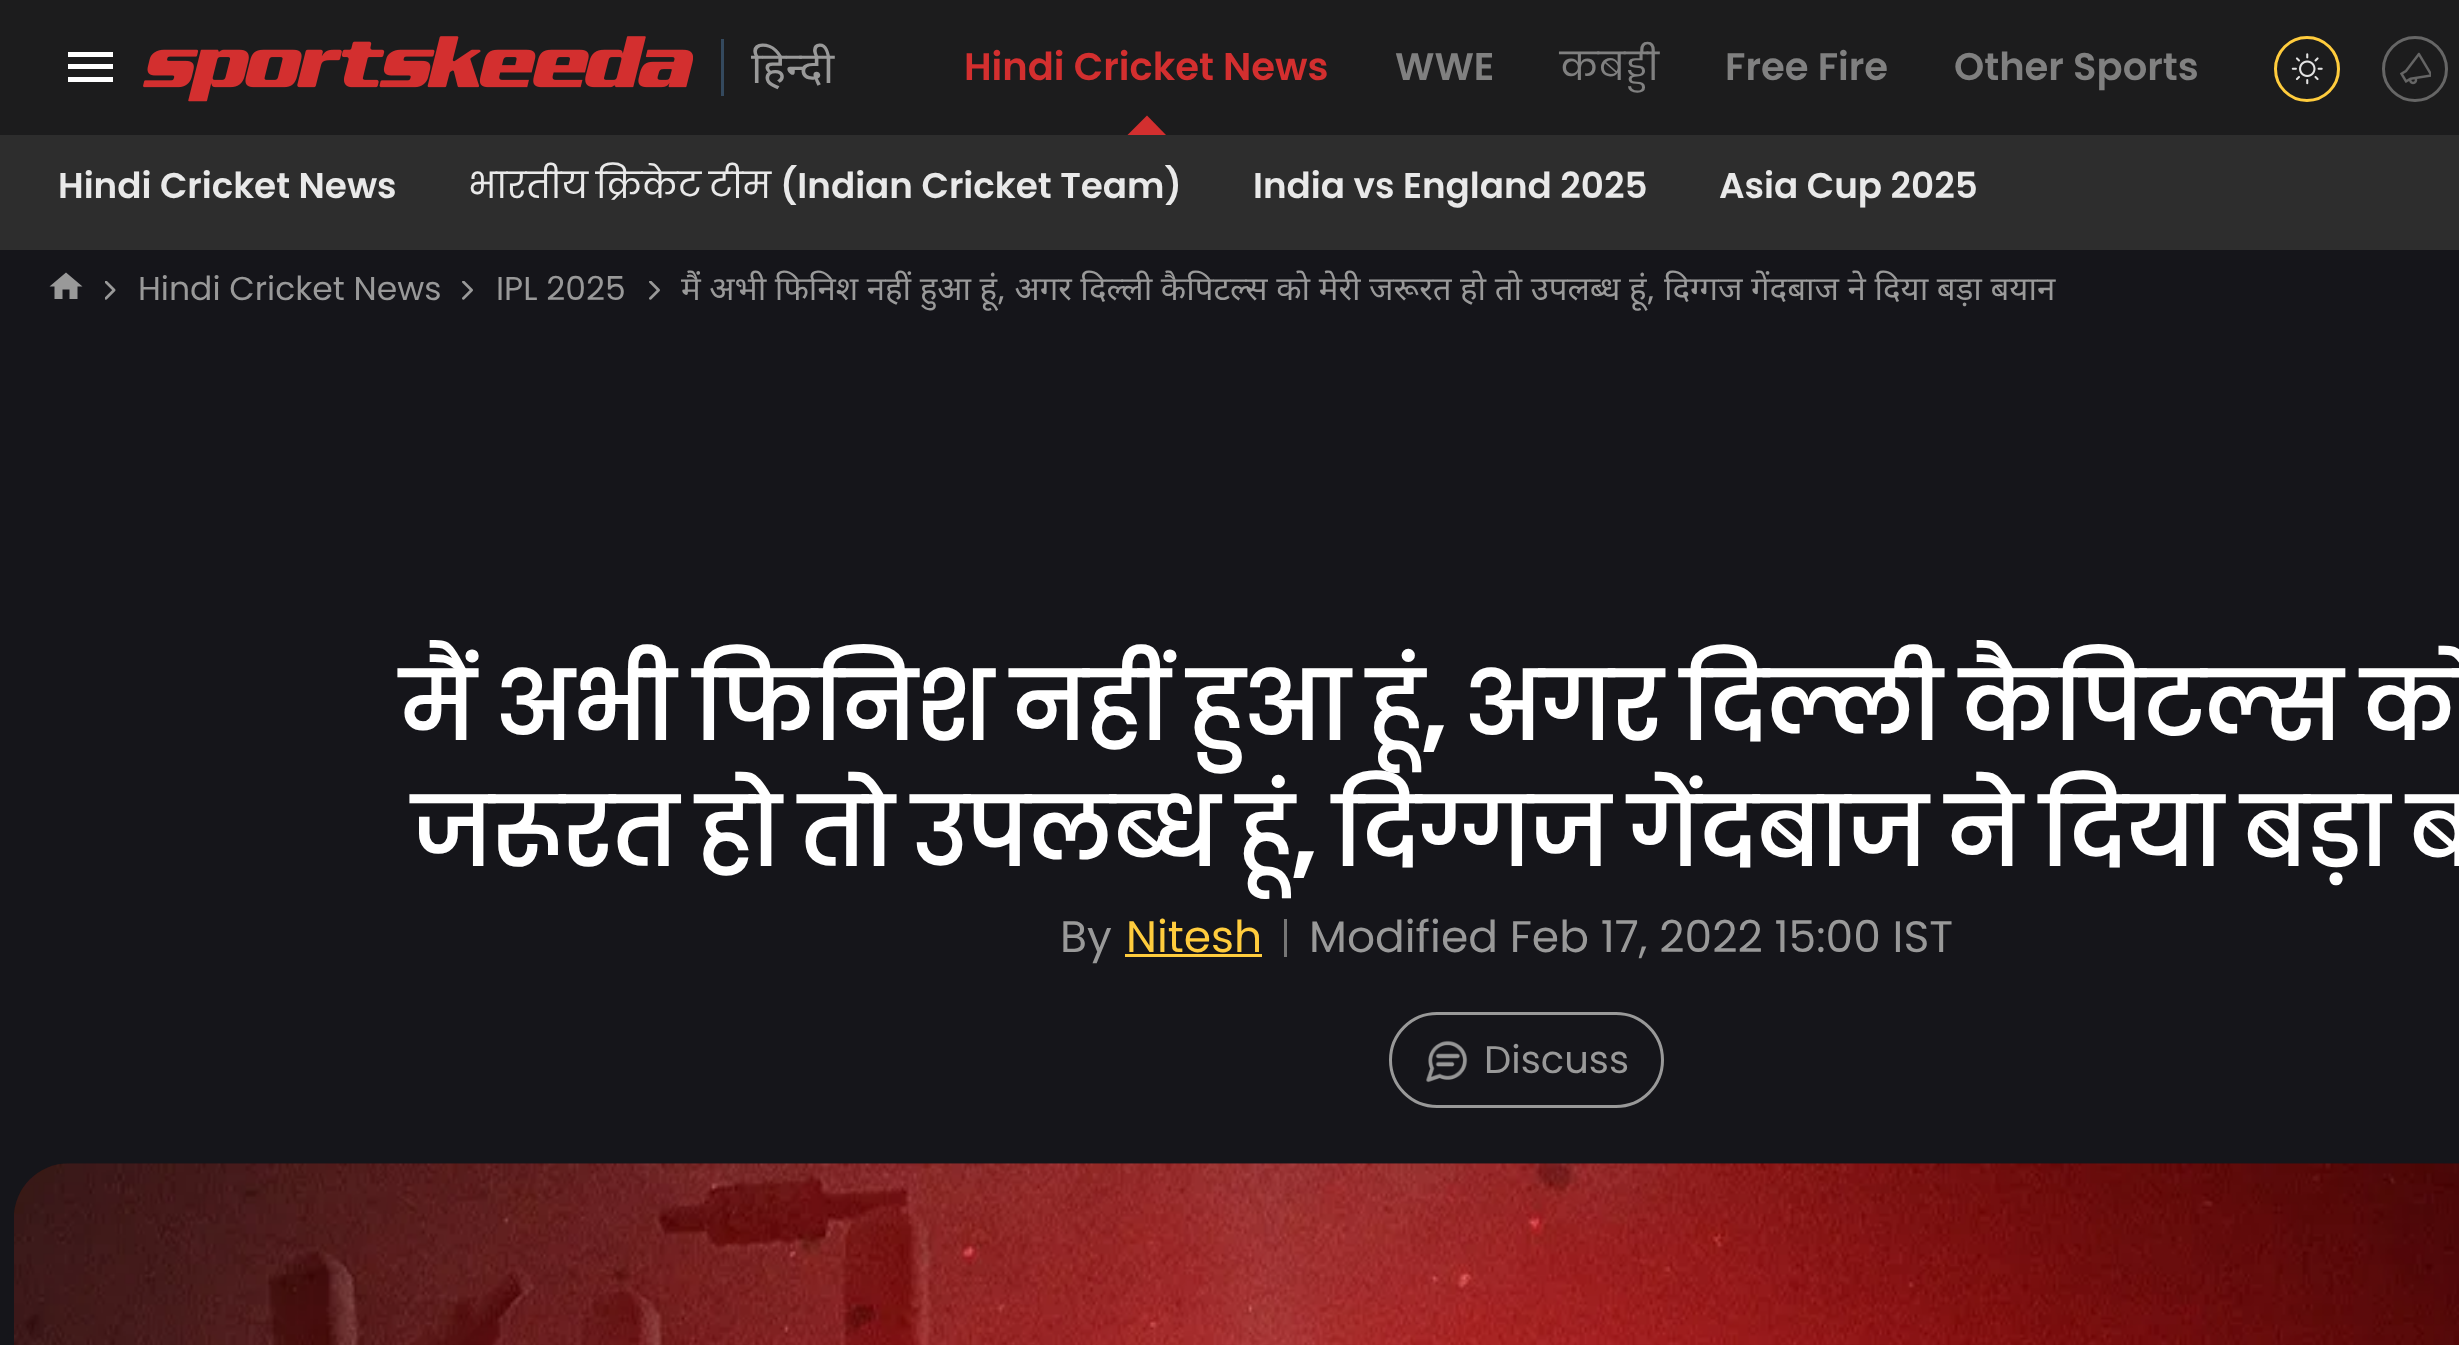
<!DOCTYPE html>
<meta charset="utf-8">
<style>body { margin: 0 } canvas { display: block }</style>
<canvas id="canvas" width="2459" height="1345"></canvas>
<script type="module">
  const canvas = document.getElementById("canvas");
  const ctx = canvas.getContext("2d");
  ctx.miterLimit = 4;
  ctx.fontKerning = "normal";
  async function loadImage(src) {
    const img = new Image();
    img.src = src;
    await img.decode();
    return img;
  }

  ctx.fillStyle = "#15151a";
  ctx.fillRect(0, 0, 2459, 1345);
  ctx.fillStyle = "#1c1c1d";
  ctx.fillRect(0, 0, 2459, 135);
  ctx.fillStyle = "#ffffff";
  ctx.beginPath();
  ctx.moveTo(68, 52);
  ctx.lineTo(113, 52);
  ctx.lineTo(113, 57);
  ctx.lineTo(68, 57);
  ctx.closePath();
  ctx.moveTo(68, 69);
  ctx.lineTo(68, 64);
  ctx.lineTo(113, 64);
  ctx.lineTo(113, 69);
  ctx.closePath();
  ctx.moveTo(68, 82);
  ctx.lineTo(68, 77);
  ctx.lineTo(113, 77);
  ctx.lineTo(113, 82);
  ctx.closePath();
  ctx.fill("evenodd");
  ctx.drawImage(await loadImage("img1.png"), 143, 36, 550, 66);
  ctx.fillStyle = "#34495e";
  ctx.fillRect(721, 39, 3, 57);
  ctx.font = "44px Noto Sans";
  ctx.fillStyle = "#999999";
  ctx.fillText("हिन्दी", 751, 83);
  ctx.font = "600 38.5px Poppins";
  ctx.fillStyle = "#d32f2f";
  ctx.fillText("Hindi Cricket News", 964, 80);
  ctx.beginPath();
  ctx.moveTo(1166, 135);
  ctx.lineTo(1127.5, 135);
  ctx.lineTo(1147, 115.5);
  ctx.closePath();
  ctx.fill();
  ctx.fillStyle = "#808080";
  ctx.fillText("WWE", 1395, 80);
  ctx.font = "38.5px 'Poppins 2'";
  ctx.fillText("कबड्डी", 1560, 80);
  ctx.font = "600 38.5px Poppins";
  ctx.fillText("Free Fire", 1725, 80);
  ctx.fillText("Other Sports", 1954, 80);
  ctx.beginPath();
  ctx.arc(2307, 69, 31.5, 0, Math.PI * 2);
  ctx.strokeStyle = "#ffcc3d";
  ctx.lineWidth = 3;
  ctx.stroke();
  ctx.drawImage(await loadImage("img2.png"), 2291, 53, 32, 32);
  ctx.beginPath();
  ctx.arc(2415, 69, 31.5, 0, Math.PI * 2);
  ctx.strokeStyle = "#666666";
  ctx.stroke();
  ctx.drawImage(await loadImage("img3.png"), 2400, 52, 31, 33);
  ctx.fillStyle = "#2d2d2d";
  ctx.fillRect(0, 135, 2459, 115);
  ctx.font = "600 35.75px Poppins";
  ctx.fillStyle = "#e9e9e9";
  ctx.fillText("Hindi Cricket News", 58, 198);
  ctx.font = "35.75px 'Poppins 2'";
  ctx.fillText("भारतीय", 468, 198);
  ctx.fillText("क्रिकेट", 596, 198);
  ctx.fillText("टीम", 709, 198);
  ctx.font = "600 35.75px Poppins";
  ctx.fillText("(Indian Cricket Team)", 780, 198);
  ctx.fillText("India vs England 2025", 1253, 198);
  ctx.fillText("Asia Cup 2025", 1719, 198);
  ctx.fillStyle = "#999999";
  ctx.beginPath();
  ctx.moveTo(62.5, 299);
  ctx.lineTo(54.5, 299);
  ctx.lineTo(54.5, 286.5);
  ctx.lineTo(49.5, 286.5);
  ctx.lineTo(66, 272.5);
  ctx.lineTo(82.5, 286.5);
  ctx.lineTo(77.5, 286.5);
  ctx.lineTo(77.5, 299);
  ctx.lineTo(69.5, 299);
  ctx.lineTo(69.5, 289.5);
  ctx.lineTo(62.5, 289.5);
  ctx.closePath();
  ctx.fill("evenodd");
  ctx.drawImage(await loadImage("img4.png"), 105, 281, 11, 19);
  ctx.font = "33px Poppins";
  ctx.fillText("Hindi Cricket News", 138, 300);
  ctx.drawImage(await loadImage("img5.png"), 462, 281, 11, 19);
  ctx.fillText("IPL 2025", 496, 300);
  ctx.drawImage(await loadImage("img5.png"), 649, 281, 11, 19);
  ctx.font = "33px Noto Sans";
  ctx.fillText("मैं अभी फिनिश नहीं हुआ हूं, अगर दिल्ली कैपिटल्स को मेरी जरूरत हो तो उपलब्ध हूं, दिग्गज गेंदबाज ने दिया बड़ा बयान", 681, 300);
  ctx.wordSpacing = "-4.5px";
  ctx.font = "bold 93.5px Poppins";
  ctx.fillStyle = "#ffffff";
  ctx.fillText("मैं अभी फिनिश नहीं हुआ हूं", 400, 740);
  ctx.wordSpacing = "0px";
  ctx.font = "bold 93.5px 'Poppins 2'";
  ctx.fillText(",", 1421, 740);
  ctx.wordSpacing = "-4.5px";
  ctx.font = "bold 93.5px Poppins";
  ctx.fillText("अगर दिल्ली कैपिटल्स को", 1463, 740);
  ctx.fillText("जरूरत हो तो उपलब्ध हूं", 412, 866);
  ctx.wordSpacing = "0px";
  ctx.font = "bold 93.5px 'Poppins 2'";
  ctx.fillText(",", 1291, 866);
  ctx.wordSpacing = "-4.5px";
  ctx.font = "bold 93.5px Poppins";
  ctx.fillText("दिग्गज गेंदबाज ने दिया बड़ा ब", 1333, 866);
  ctx.wordSpacing = "0px";
  ctx.font = "44px Poppins";
  ctx.fillStyle = "#999999";
  ctx.fillText("By", 1060, 952);
  ctx.fillStyle = "#757575";
  ctx.fillRect(1284, 919, 3, 38);
  ctx.fillStyle = "#ffcc3d";
  ctx.fillText("Nitesh", 1126, 952);
  ctx.fillRect(1125, 954, 137, 3);
  ctx.fillStyle = "#999999";
  ctx.fillText("Modified Feb 17, 2022 15:00 IST", 1309, 952);
  ctx.beginPath();
  ctx.roundRect(1390.5, 1013.5, 272, 93, 46.5);
  ctx.strokeStyle = "#999999";
  ctx.stroke();
  ctx.drawImage(await loadImage("img6.png"), 1426, 1040, 42, 43);
  ctx.font = "38.5px Poppins";
  ctx.fillText("Discuss", 1484, 1073);
  ctx.drawImage(await loadImage("img7.png"), 14, 1163, 2445, 182);
</script>
